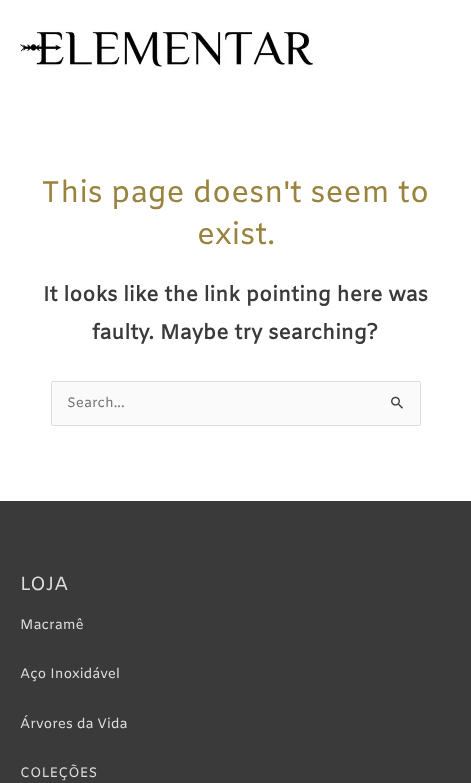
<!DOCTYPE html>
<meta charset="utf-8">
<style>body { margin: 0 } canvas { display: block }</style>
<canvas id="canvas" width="471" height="783"></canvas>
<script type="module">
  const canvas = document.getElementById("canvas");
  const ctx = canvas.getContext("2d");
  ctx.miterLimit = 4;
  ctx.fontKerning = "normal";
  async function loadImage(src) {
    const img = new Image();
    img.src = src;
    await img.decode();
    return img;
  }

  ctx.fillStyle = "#ffffff";
  ctx.fillRect(0, 0, 471, 783);
  ctx.drawImage(await loadImage("img1.png"), 20, 30, 293, 40);
  ctx.font = "30px Amiko";
  ctx.fillStyle = "#99833e";
  ctx.fillText("This page doesn't seem to", 41, 202);
  ctx.fillText("exist.", 197, 244);
  ctx.font = "bold 20.5px Amiko";
  ctx.fillStyle = "#3a3a3a";
  ctx.fillText("It looks like the link pointing here was", 43, 301);
  ctx.fillText("faulty. Maybe try searching?", 92, 339);
  ctx.fillStyle = "#fafafa";
  ctx.beginPath();
  ctx.roundRect(51.5, 381.5, 369, 44, 1.5);
  ctx.fill();
  ctx.strokeStyle = "#dddddd";
  ctx.stroke();
  ctx.font = "13.75px Amiko";
  ctx.fillStyle = "#757575";
  ctx.fillText("Search...", 67, 407);
  ctx.drawImage(await loadImage("img2.png"), 391, 396, 12, 13);
  ctx.fillStyle = "#3a3a3a";
  ctx.fillRect(0, 501, 471, 282);
  ctx.font = "19px Amiko";
  ctx.fillStyle = "#dddddd";
  ctx.fillText("LOJA", 20, 590);
  ctx.font = "13.75px Amiko";
  ctx.fillText("Macramê", 20, 629);
  ctx.fillText("Aço Inoxidável", 20, 678);
  ctx.fillText("Árvores da Vida", 20, 728);
  ctx.fillText("COLEÇÕES", 20, 777);
</script>
